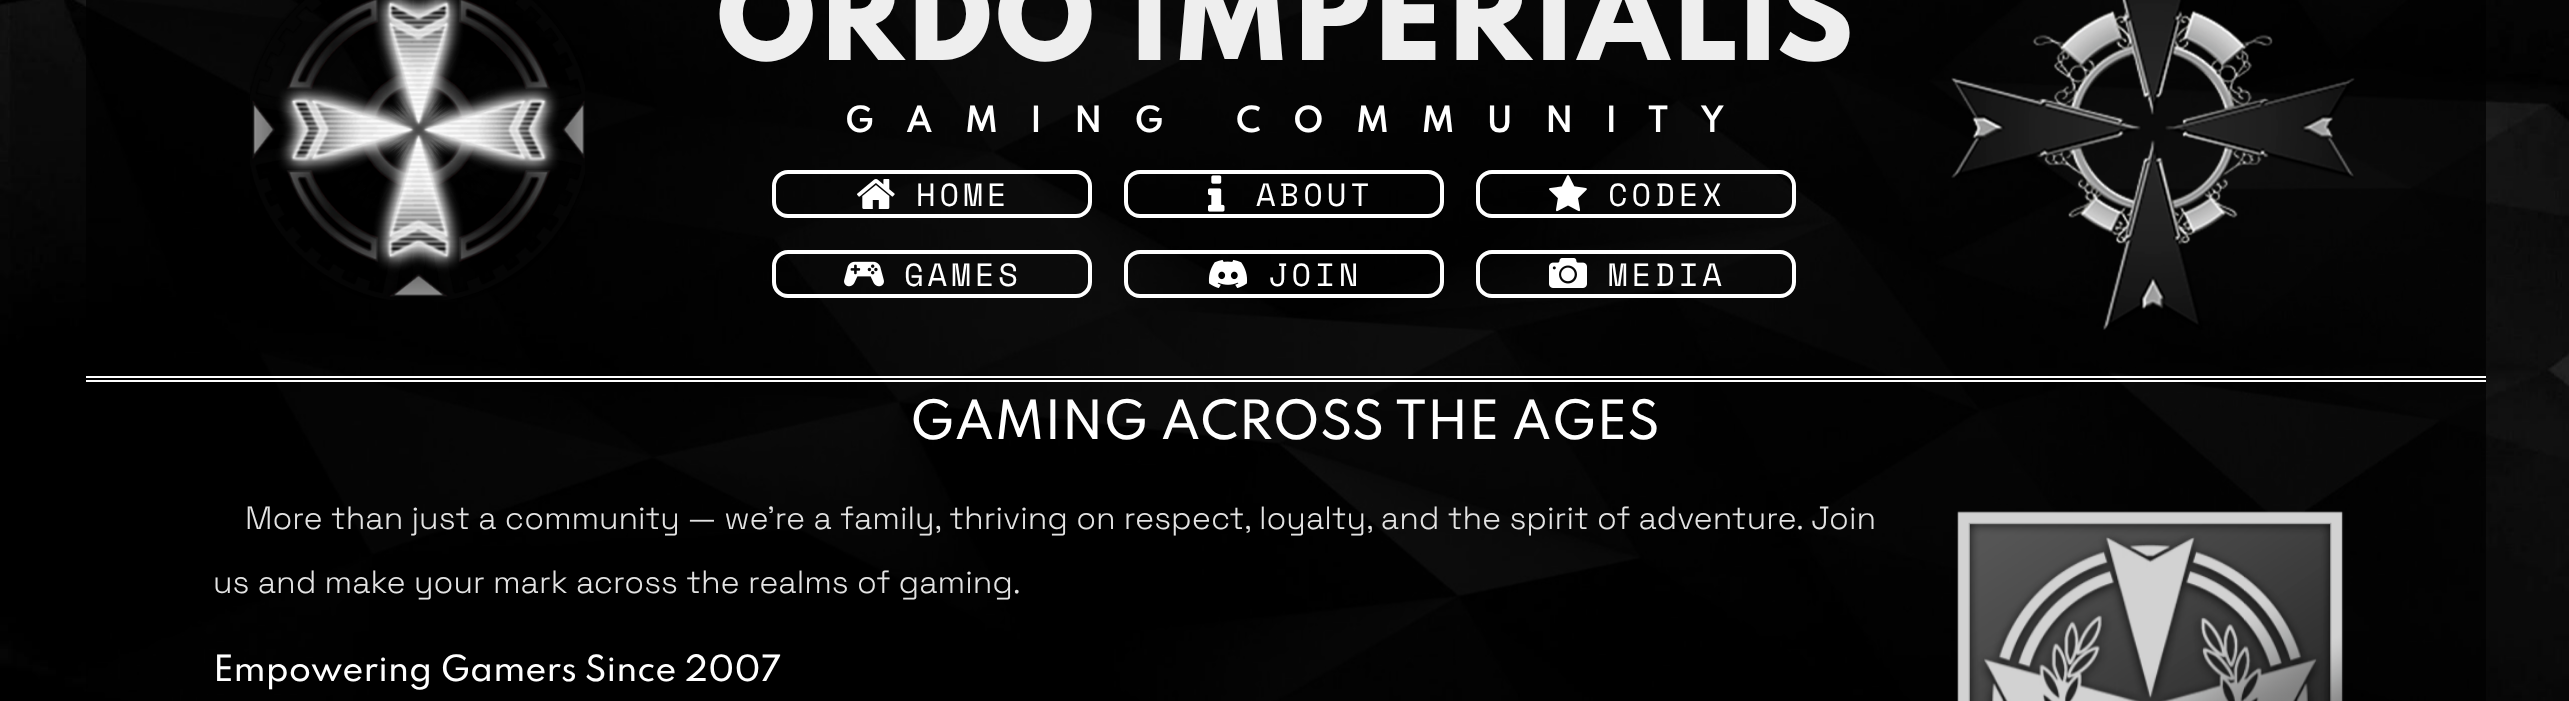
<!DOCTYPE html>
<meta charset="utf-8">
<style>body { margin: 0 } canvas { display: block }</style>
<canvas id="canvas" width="2569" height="701"></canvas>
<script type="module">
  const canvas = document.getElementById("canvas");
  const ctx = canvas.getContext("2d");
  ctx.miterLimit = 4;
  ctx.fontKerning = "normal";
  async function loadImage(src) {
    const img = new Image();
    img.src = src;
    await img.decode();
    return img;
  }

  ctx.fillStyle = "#ffffff";
  ctx.fillRect(0, 0, 2569, 701);
  ctx.drawImage(await loadImage("img1.png"), 0, 0, 2569, 701);
  ctx.drawImage(await loadImage("img2.png"), 250, 0, 335, 300);
  ctx.font = "800 112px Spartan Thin";
  ctx.fillStyle = "#eeeeee";
  ctx.fillText("ORDO IMPERIALIS", 715, 60);
  ctx.letterSpacing = "32px";
  ctx.font = "600 32px Spartan Thin";
  ctx.fillStyle = "#ffffff";
  ctx.fillText("GAMING COMMUNITY", 845, 132);
  ctx.beginPath();
  ctx.roundRect(774, 172, 316, 44, 14);
  ctx.strokeStyle = "#ffffff";
  ctx.lineWidth = 4;
  ctx.stroke();
  ctx.drawImage(await loadImage("img3.png"), 857, 179, 38, 30);
  ctx.letterSpacing = "4px";
  ctx.font = "32px Space Mono";
  ctx.fillText("HOME", 916, 206);
  ctx.beginPath();
  ctx.roundRect(1126, 172, 316, 44, 14);
  ctx.stroke();
  ctx.drawImage(await loadImage("img4.png"), 1208, 175, 17, 37);
  ctx.fillText("ABOUT", 1256, 206);
  ctx.beginPath();
  ctx.roundRect(1478, 172, 316, 44, 14);
  ctx.stroke();
  ctx.drawImage(await loadImage("img5.png"), 1549, 175, 38, 37);
  ctx.fillText("CODEX", 1608, 206);
  ctx.beginPath();
  ctx.roundRect(774, 252, 316, 44, 14);
  ctx.stroke();
  ctx.drawImage(await loadImage("img6.png"), 844, 261, 40, 26);
  ctx.fillText("GAMES", 904, 286);
  ctx.beginPath();
  ctx.roundRect(1126, 252, 316, 44, 14);
  ctx.stroke();
  ctx.drawImage(await loadImage("img7.png"), 1208, 259, 40, 29);
  ctx.fillText("JOIN", 1268, 286);
  ctx.beginPath();
  ctx.roundRect(1478, 252, 316, 44, 14);
  ctx.stroke();
  ctx.drawImage(await loadImage("img8.png"), 1549, 258, 38, 30);
  ctx.fillText("MEDIA", 1608, 286);
  ctx.drawImage(await loadImage("img9.png"), 1951, 0, 404, 330);
  ctx.fillRect(86, 376, 2400, 2);
  ctx.fillRect(86, 380, 2400, 2);
  ctx.letterSpacing = "0px";
  ctx.font = "500 48px Spartan Thin";
  ctx.fillText("GAMING ACROSS THE AGES", 910, 439);
  ctx.font = "300 32px Space Grotesk";
  ctx.fillStyle = "#e3e3e3";
  ctx.fillText("More than just a community — we're a family, thriving on respect, loyalty, and the spirit of adventure. Join", 245, 529);
  ctx.fillText("us and make your mark across the realms of gaming.", 213, 593);
  ctx.font = "500 32px Spartan Thin";
  ctx.fillStyle = "#ffffff";
  ctx.fillText("Empowering Gamers Since 2007", 213, 681);
  ctx.drawImage(await loadImage("img10.png"), 1957, 511, 387, 190);
</script>
